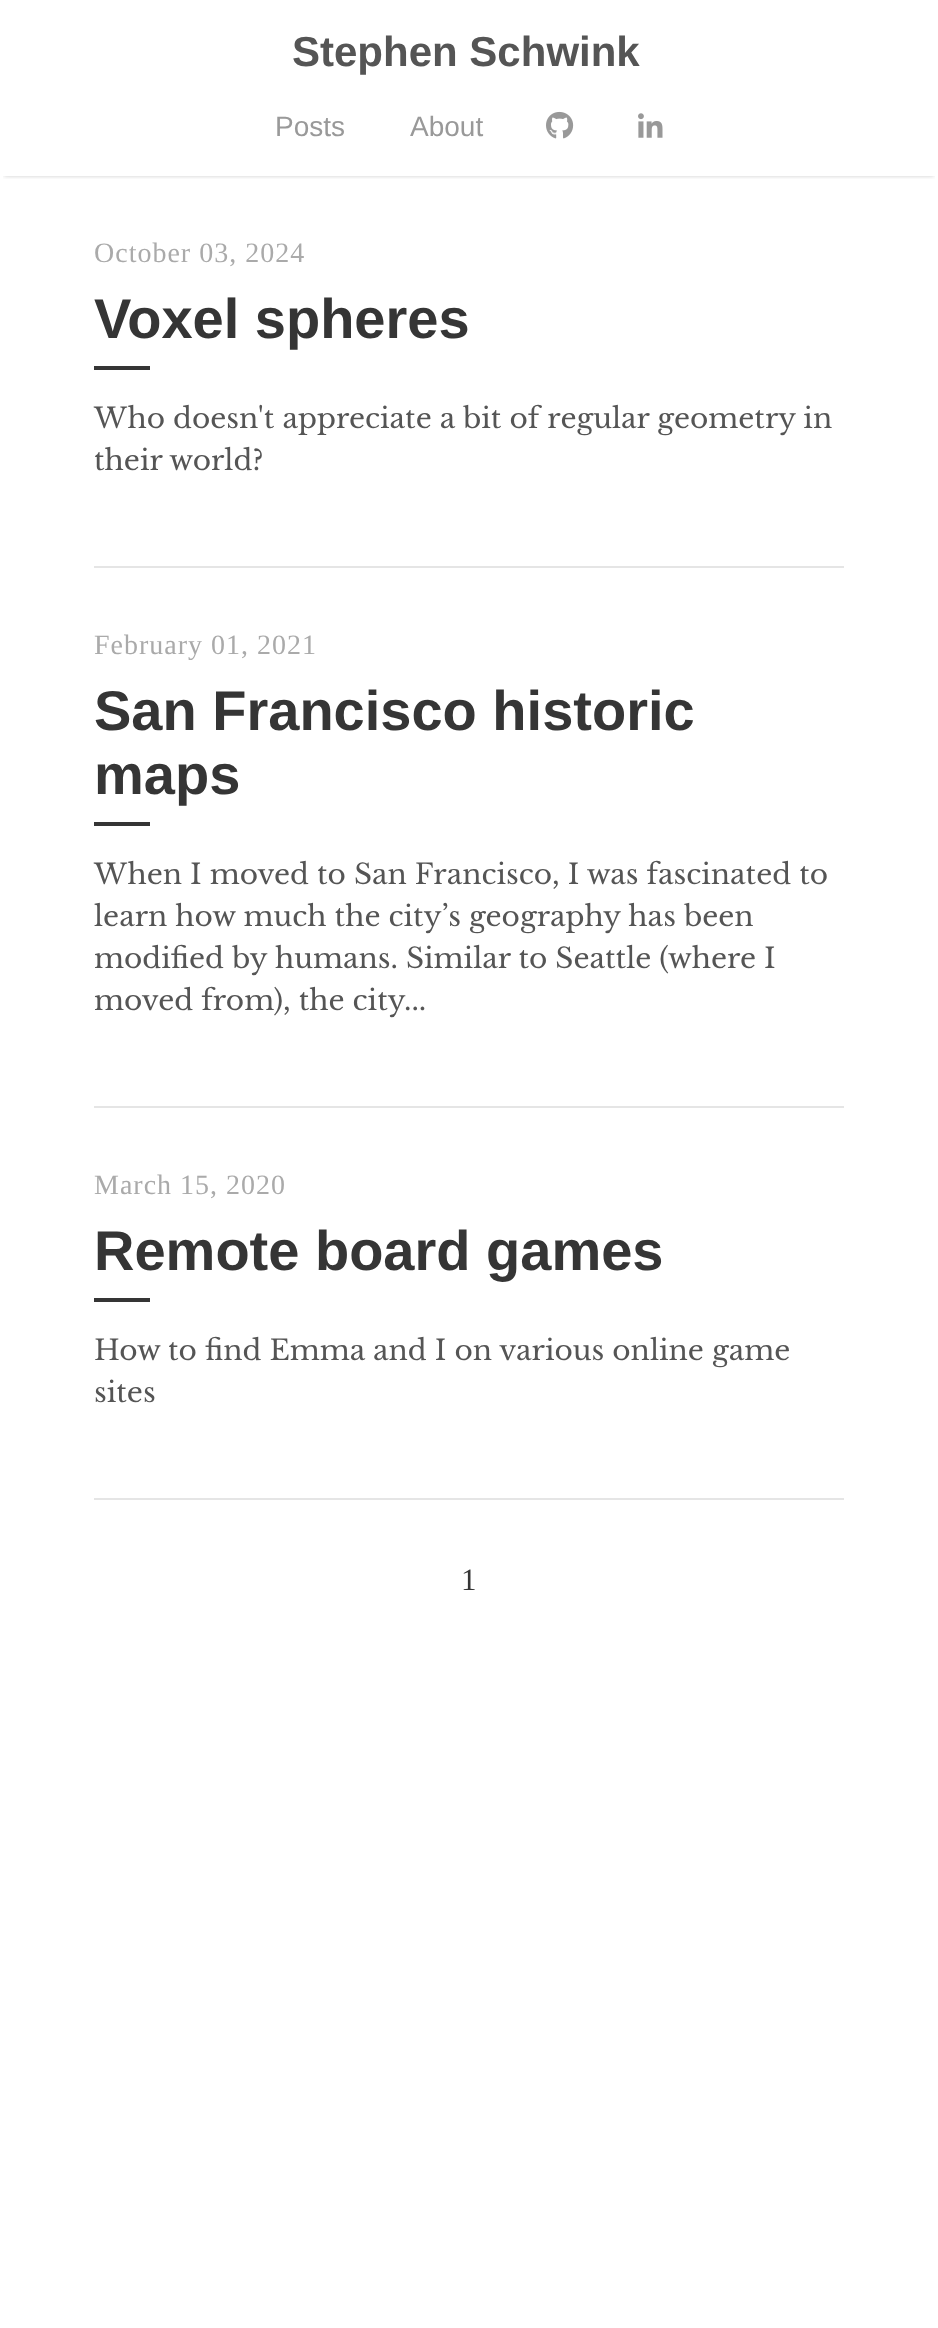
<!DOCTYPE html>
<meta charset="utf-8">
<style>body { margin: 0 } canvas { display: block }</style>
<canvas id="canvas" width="938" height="2328"></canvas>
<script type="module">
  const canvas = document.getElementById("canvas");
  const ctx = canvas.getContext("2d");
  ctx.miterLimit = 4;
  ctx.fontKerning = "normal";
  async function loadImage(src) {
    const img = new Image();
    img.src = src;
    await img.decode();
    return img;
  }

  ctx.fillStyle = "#ffffff";
  ctx.fillRect(0, 0, 938, 2328);
  ctx.save();
  ctx.beginPath();
  ctx.rect(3, 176, 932, 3);
  ctx.clip();
  ctx.fillStyle = "rgba(0, 0, 0, 0.2)";
  ctx.filter = "blur(2px)";
  ctx.beginPath();
  ctx.rect(4, 8, 930, 168);
  ctx.fill();
  ctx.filter = "none";
  ctx.restore();
  ctx.font = "bold 42px Liberation Sans";
  ctx.fillStyle = "#555555";
  ctx.fillText("Stephen Schwink", 292, 66);
  ctx.font = "28px Liberation Sans";
  ctx.fillStyle = "#999999";
  ctx.fillText("Posts", 275, 136);
  ctx.fillText("About", 410, 136);
  ctx.drawImage(await loadImage("img1.png"), 546, 111, 28, 28);
  ctx.drawImage(await loadImage("img2.png"), 638, 113, 25, 25);
  ctx.fillStyle = "#e5e5e5";
  ctx.fillRect(94, 566, 750, 2);
  ctx.letterSpacing = "1px";
  ctx.font = "28px Liberation Serif";
  ctx.fillStyle = "#aaaaaa";
  ctx.fillText("October 03, 2024", 94, 262);
  ctx.letterSpacing = "0px";
  ctx.font = "bold 56px Liberation Sans";
  ctx.fillStyle = "#353535";
  ctx.fillText("Voxel spheres", 94, 338);
  ctx.fillRect(94, 366, 56, 4);
  ctx.font = "28px Libre Baskerville";
  ctx.fillStyle = "#555555";
  ctx.fillText("Who doesn't appreciate a bit of regular geometry in", 94, 428);
  ctx.fillText("their world?", 94, 470);
  ctx.fillStyle = "#e5e5e5";
  ctx.fillRect(94, 1106, 750, 2);
  ctx.letterSpacing = "1px";
  ctx.font = "28px Liberation Serif";
  ctx.fillStyle = "#aaaaaa";
  ctx.fillText("February 01, 2021", 94, 654);
  ctx.letterSpacing = "0px";
  ctx.font = "bold 56px Liberation Sans";
  ctx.fillStyle = "#353535";
  ctx.fillText("San Francisco historic", 94, 730);
  ctx.fillText("maps", 94, 794);
  ctx.fillRect(94, 822, 56, 4);
  ctx.font = "28px Libre Baskerville";
  ctx.fillStyle = "#555555";
  ctx.fillText("When I moved to San Francisco, I was fascinated to", 94, 884);
  ctx.fillText("learn how much the city’s geography has been", 94, 926);
  ctx.fillText("modified by humans. Similar to Seattle (where I", 94, 968);
  ctx.fillText("moved from), the city...", 94, 1010);
  ctx.letterSpacing = "1px";
  ctx.font = "28px Liberation Serif";
  ctx.fillStyle = "#aaaaaa";
  ctx.fillText("March 15, 2020", 94, 1194);
  ctx.letterSpacing = "0px";
  ctx.font = "bold 56px Liberation Sans";
  ctx.fillStyle = "#353535";
  ctx.fillText("Remote board games", 94, 1270);
  ctx.fillRect(94, 1298, 56, 4);
  ctx.font = "28px Libre Baskerville";
  ctx.fillStyle = "#555555";
  ctx.fillText("How to find Emma and I on various online game", 94, 1360);
  ctx.fillText("sites", 94, 1402);
  ctx.fillStyle = "#e5e5e5";
  ctx.fillRect(94, 1498, 750, 2);
  ctx.font = "31px Liberation Serif";
  ctx.fillStyle = "#353535";
  ctx.fillText("1", 461, 1590);
</script>
